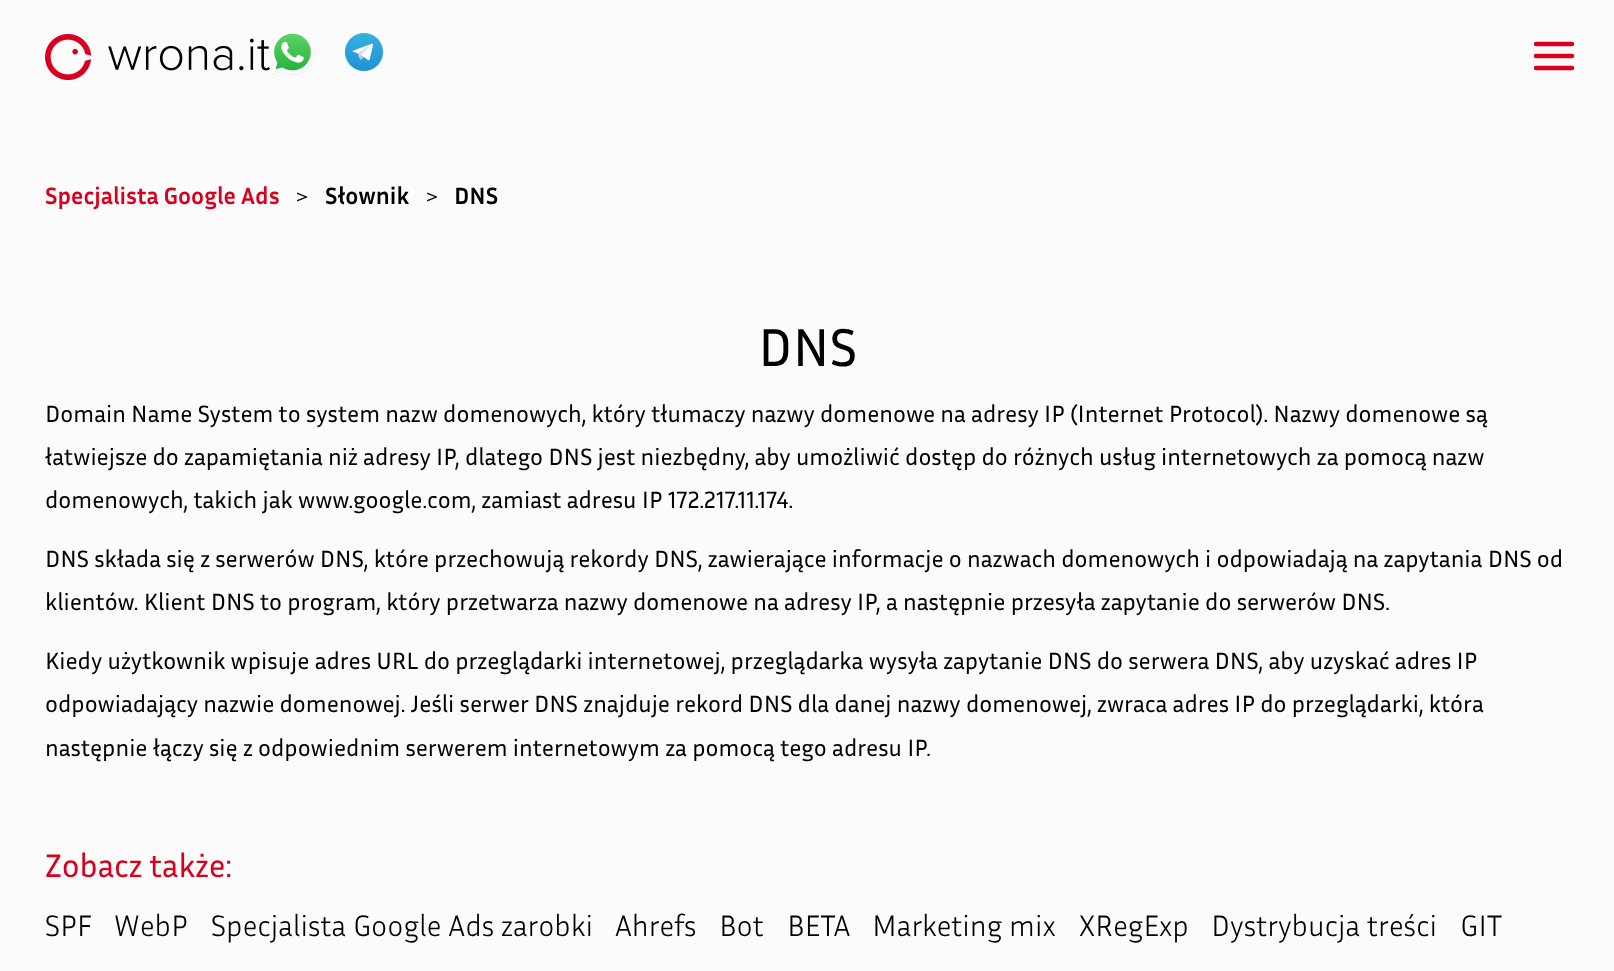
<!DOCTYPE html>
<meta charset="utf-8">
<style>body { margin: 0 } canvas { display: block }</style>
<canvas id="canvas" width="1614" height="971"></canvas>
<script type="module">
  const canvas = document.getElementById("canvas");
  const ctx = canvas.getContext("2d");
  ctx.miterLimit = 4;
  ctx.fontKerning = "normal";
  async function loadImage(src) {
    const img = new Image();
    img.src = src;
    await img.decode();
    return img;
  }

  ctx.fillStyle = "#fbfbfb";
  ctx.fillRect(0, 0, 1614, 971);
  ctx.drawImage(await loadImage("img1.png"), 45, 34, 225, 46);
  ctx.drawImage(await loadImage("img2.png"), 270, 30, 45, 45);
  ctx.drawImage(await loadImage("img3.png"), 345, 33, 38, 38);
  ctx.beginPath();
  ctx.moveTo(1536, 44);
  ctx.lineTo(1572, 44);
  ctx.moveTo(1536, 56);
  ctx.lineTo(1572, 56);
  ctx.moveTo(1536, 56);
  ctx.lineTo(1572, 56);
  ctx.moveTo(1536, 68);
  ctx.lineTo(1572, 68);
  ctx.strokeStyle = "#d9001f";
  ctx.lineWidth = 4.5;
  ctx.lineCap = "round";
  ctx.stroke();
  ctx.font = "bold 24px Inria Sans";
  ctx.fillStyle = "#d9001f";
  ctx.fillText("Specjalista Google Ads", 45, 204);
  ctx.font = "300 24px Inria Sans";
  ctx.fillStyle = "#000000";
  ctx.fillText(">", 295, 204);
  ctx.font = "bold 24px Inria Sans";
  ctx.fillText("Słownik", 325, 204);
  ctx.font = "300 24px Inria Sans";
  ctx.fillText(">", 425, 204);
  ctx.font = "bold 24px Inria Sans";
  ctx.fillText("DNS", 454, 204);
  ctx.font = "54px Inria Sans";
  ctx.fillText("DNS", 758, 366);
  ctx.font = "24px Inria Sans";
  ctx.fillText("Domain Name System to system nazw domenowych, który tłumaczy nazwy domenowe na adresy IP (Internet Protocol). Nazwy domenowe są", 45, 422);
  ctx.fillText("łatwiejsze do zapamiętania niż adresy IP, dlatego DNS jest niezbędny, aby umożliwić dostęp do różnych usług internetowych za pomocą nazw", 45, 465);
  ctx.fillText("domenowych, takich jak www.google.com, zamiast adresu IP 172.217.11.174.", 45, 508);
  ctx.fillText("DNS składa się z serwerów DNS, które przechowują rekordy DNS, zawierające informacje o nazwach domenowych i odpowiadają na zapytania DNS od", 45, 567);
  ctx.fillText("klientów. Klient DNS to program, który przetwarza nazwy domenowe na adresy IP, a następnie przesyła zapytanie do serwerów DNS.", 45, 610);
  ctx.fillText("Kiedy użytkownik wpisuje adres URL do przeglądarki internetowej, przeglądarka wysyła zapytanie DNS do serwera DNS, aby uzyskać adres IP", 45, 669);
  ctx.fillText("odpowiadający nazwie domenowej. Jeśli serwer DNS znajduje rekord DNS dla danej nazwy domenowej, zwraca adres IP do przeglądarki, która", 45, 712);
  ctx.fillText("następnie łączy się z odpowiednim serwerem internetowym za pomocą tego adresu IP.", 45, 756);
  ctx.font = "33px Inria Sans";
  ctx.fillStyle = "#d9001f";
  ctx.fillText("Zobacz także:", 45, 877);
  ctx.font = "300 30px Inria Sans";
  ctx.fillStyle = "#000000";
  ctx.fillText("SPF", 45, 936);
  ctx.fillText("WebP", 114, 936);
  ctx.fillText("Specjalista Google Ads zarobki", 211, 936);
  ctx.fillText("Ahrefs", 615, 936);
  ctx.fillText("Bot", 719, 936);
  ctx.fillText("BETA", 787, 936);
  ctx.fillText("Marketing mix", 872, 936);
  ctx.fillText("XRegExp", 1079, 936);
  ctx.fillText("Dystrybucja treści", 1211, 936);
  ctx.fillText("GIT", 1460, 936);
</script>
